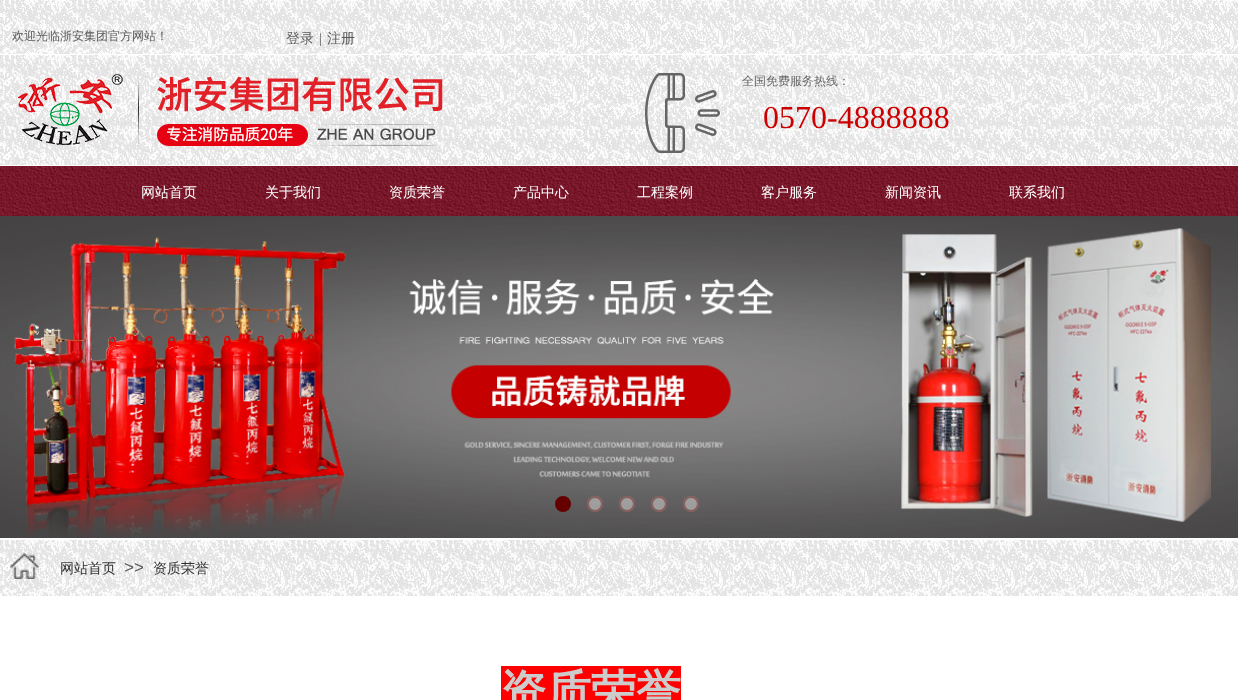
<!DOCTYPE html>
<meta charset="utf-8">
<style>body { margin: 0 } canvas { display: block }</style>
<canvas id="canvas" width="1238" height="700"></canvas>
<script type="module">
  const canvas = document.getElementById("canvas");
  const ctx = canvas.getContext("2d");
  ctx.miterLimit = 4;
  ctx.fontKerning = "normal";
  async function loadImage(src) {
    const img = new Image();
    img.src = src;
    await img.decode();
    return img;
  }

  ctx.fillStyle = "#ffffff";
  ctx.fillRect(0, 0, 1238, 700);
  ctx.drawImage(await loadImage("img1.png"), 0, 0, 1238, 54);
  ctx.font = "500 12px WenQuanYi Zen Hei";
  ctx.fillStyle = "#5a5a5a";
  ctx.fillText("欢迎光临浙安集团官方网站！", 12, 40);
  ctx.font = "500 14px WenQuanYi Zen Hei";
  ctx.fillText("登录", 286, 43);
  ctx.font = "14px Liberation Serif";
  ctx.fillText("|", 319, 43);
  ctx.font = "500 14px WenQuanYi Zen Hei";
  ctx.fillText("注册", 327, 43);
  ctx.drawImage(await loadImage("img2.png"), 0, 55, 1238, 110);
  ctx.drawImage(await loadImage("img3.png"), 17, 74, 429, 73);
  ctx.drawImage(await loadImage("img4.png"), 645, 73, 75, 80);
  ctx.font = "500 12px WenQuanYi Zen Hei";
  ctx.fillStyle = "#666666";
  ctx.fillText("全国免费服务热线：", 742, 85);
  ctx.font = "32px Liberation Serif";
  ctx.fillStyle = "#cc0000";
  ctx.fillText("0570-4888888", 763, 128);
  ctx.drawImage(await loadImage("img5.png"), 0, 166, 1238, 50);
  ctx.drawImage(await loadImage("img6.png"), 107, 168, 1044, 46);
  ctx.font = "500 14px WenQuanYi Zen Hei";
  ctx.fillStyle = "#ffffff";
  ctx.fillText("网站首页", 141, 197);
  ctx.fillText("关于我们", 265, 197);
  ctx.fillText("资质荣誉", 389, 197);
  ctx.fillText("产品中心", 513, 197);
  ctx.fillText("工程案例", 637, 197);
  ctx.fillText("客户服务", 761, 197);
  ctx.fillText("新闻资讯", 885, 197);
  ctx.fillText("联系我们", 1009, 197);
  ctx.drawImage(await loadImage("img7.png"), 0, 216, 1238, 322);
  ctx.fillStyle = "#660000";
  ctx.beginPath();
  ctx.arc(563, 504, 7, 0, Math.PI * 2);
  ctx.fill();
  ctx.strokeStyle = "#660000";
  ctx.lineWidth = 2;
  ctx.stroke();
  ctx.fillStyle = "rgba(255, 255, 255, 0.4)";
  ctx.beginPath();
  ctx.arc(595, 504, 8, 0, Math.PI * 2);
  ctx.fill();
  ctx.beginPath();
  ctx.arc(595, 504, 7, 0, Math.PI * 2);
  ctx.strokeStyle = "rgba(102, 0, 0, 0.4)";
  ctx.stroke();
  ctx.beginPath();
  ctx.arc(627, 504, 8, 0, Math.PI * 2);
  ctx.fill();
  ctx.beginPath();
  ctx.arc(627, 504, 7, 0, Math.PI * 2);
  ctx.stroke();
  ctx.beginPath();
  ctx.arc(659, 504, 8, 0, Math.PI * 2);
  ctx.fill();
  ctx.beginPath();
  ctx.arc(659, 504, 7, 0, Math.PI * 2);
  ctx.stroke();
  ctx.beginPath();
  ctx.arc(691, 504, 8, 0, Math.PI * 2);
  ctx.fill();
  ctx.beginPath();
  ctx.arc(691, 504, 7, 0, Math.PI * 2);
  ctx.stroke();
  ctx.drawImage(await loadImage("img9.png"), 0, 540, 1238, 56);
  ctx.drawImage(await loadImage("img8.png"), 10, 553, 29, 26);
  ctx.fillStyle = "#333333";
  ctx.fillText("网站首页", 60, 573);
  ctx.font = "17px Liberation Sans";
  ctx.fillStyle = "#5a5a5a";
  ctx.fillText(">>", 124, 573);
  ctx.font = "500 14px WenQuanYi Zen Hei";
  ctx.fillStyle = "#333333";
  ctx.fillText("资质荣誉", 153, 573);
  ctx.fillStyle = "#ff0000";
  ctx.fillRect(501, 666, 180, 34);
  ctx.font = "bold 45px WenQuanYi Zen Hei";
  ctx.fillStyle = "#cccccc";
  ctx.fillText("资质荣誉", 501, 707);
</script>
